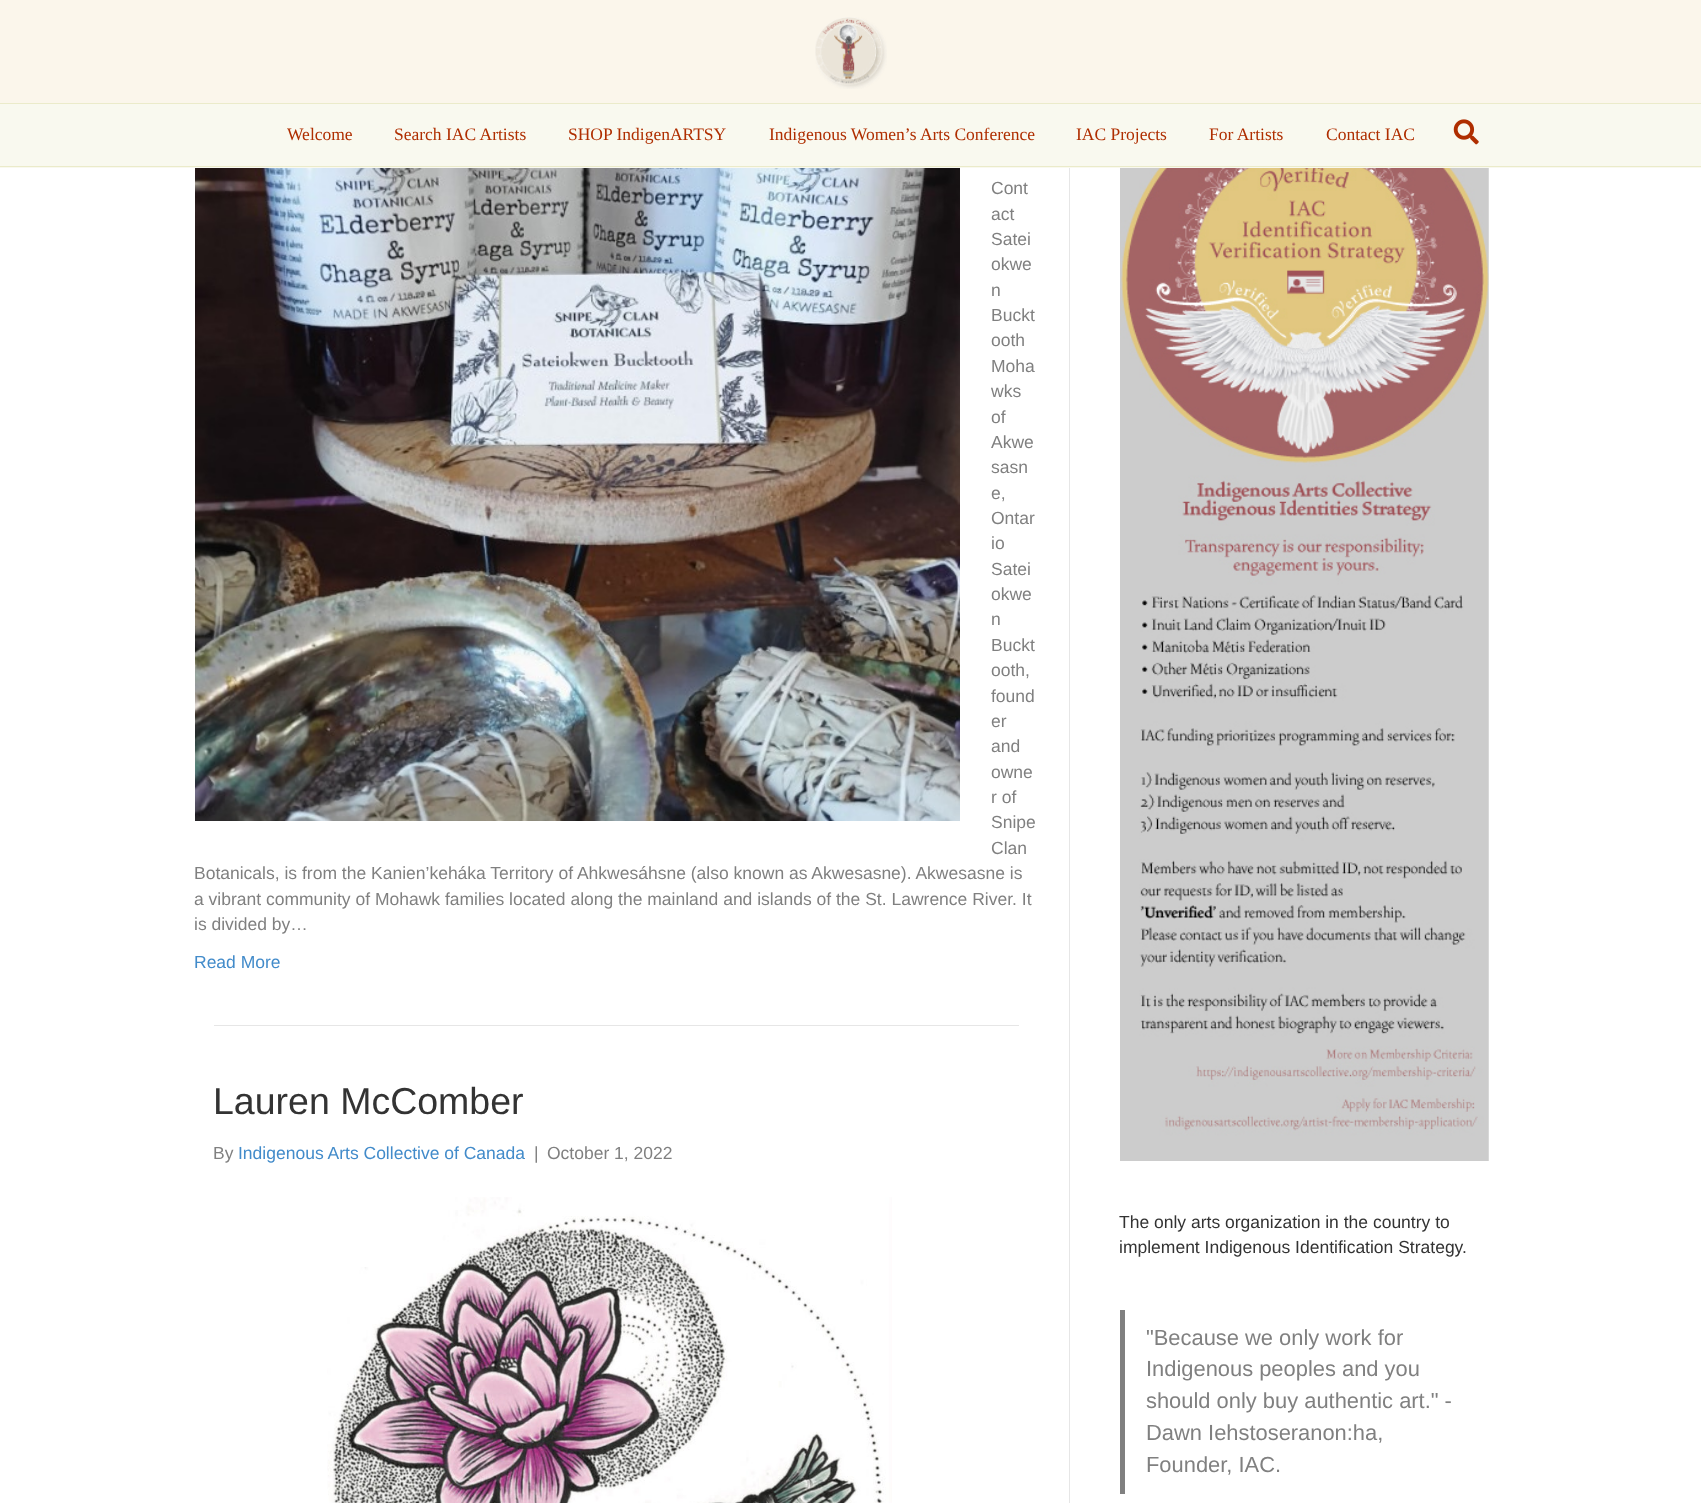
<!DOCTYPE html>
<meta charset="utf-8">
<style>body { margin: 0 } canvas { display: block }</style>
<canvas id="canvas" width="1701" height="1503"></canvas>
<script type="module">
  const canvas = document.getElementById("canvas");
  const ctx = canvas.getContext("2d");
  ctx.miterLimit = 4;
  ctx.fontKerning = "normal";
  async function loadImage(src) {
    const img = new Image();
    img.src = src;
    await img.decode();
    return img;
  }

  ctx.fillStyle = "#ffffff";
  ctx.fillRect(0, 0, 1701, 1503);
  ctx.fillStyle = "#fbf6eb";
  ctx.fillRect(0, 0, 1701, 103);
  ctx.drawImage(await loadImage("img1.png"), 815, 17, 72, 72);
  ctx.fillStyle = "#f9f9ef";
  ctx.fillRect(0, 104, 1701, 64);
  ctx.fillStyle = "#ebebca";
  ctx.fillRect(0, 103, 1701, 1);
  ctx.fillRect(0, 166, 1701, 1);
  ctx.font = "17.5px Liberation Serif";
  ctx.fillStyle = "#af2e00";
  ctx.fillText("Welcome", 287, 140);
  ctx.fillText("Search IAC Artists", 394, 140);
  ctx.fillText("SHOP IndigenARTSY", 568, 140);
  ctx.fillText("Indigenous Women’s Arts Conference", 769, 140);
  ctx.fillText("IAC Projects", 1076, 140);
  ctx.fillText("For Artists", 1209, 140);
  ctx.fillText("Contact IAC", 1326, 140);
  ctx.drawImage(await loadImage("img2.png"), 1453, 119, 26, 26);
  ctx.fillStyle = "#e6e6e6";
  ctx.fillRect(1069, 168, 1, 1335);
  ctx.fillRect(214, 1025, 805, 1);
  ctx.drawImage(await loadImage("img3.png"), 195, 168, 765, 653);
  ctx.font = "17.5px Liberation Sans";
  ctx.fillStyle = "#808080";
  ctx.fillText("Cont", 991, 194);
  ctx.fillText("act", 991, 220);
  ctx.fillText("Satei", 991, 245);
  ctx.fillText("okwe", 991, 270);
  ctx.fillText("n", 991, 296);
  ctx.fillText("Buckt", 991, 321);
  ctx.fillText("ooth", 991, 346);
  ctx.fillText("Moha", 991, 372);
  ctx.fillText("wks", 991, 397);
  ctx.fillText("of", 991, 423);
  ctx.fillText("Akwe", 991, 448);
  ctx.fillText("sasn", 991, 473);
  ctx.fillText("e,", 991, 499);
  ctx.fillText("Ontar", 991, 524);
  ctx.fillText("io", 991, 549);
  ctx.fillText("Satei", 991, 575);
  ctx.fillText("okwe", 991, 600);
  ctx.fillText("n", 991, 625);
  ctx.fillText("Buckt", 991, 651);
  ctx.fillText("ooth,", 991, 676);
  ctx.fillText("found", 991, 702);
  ctx.fillText("er", 991, 727);
  ctx.fillText("and", 991, 752);
  ctx.fillText("owne", 991, 778);
  ctx.fillText("r of", 991, 803);
  ctx.fillText("Snipe", 991, 828);
  ctx.fillText("Clan", 991, 854);
  ctx.fillText("Botanicals, is from the Kanien’keháka Territory of Ahkwesáhsne (also known as Akwesasne). Akwesasne is", 194, 879);
  ctx.fillText("a vibrant community of Mohawk families located along the mainland and islands of the St. Lawrence River. It", 194, 905);
  ctx.fillText("is divided by…", 194, 930);
  ctx.fillStyle = "#428bca";
  ctx.fillText("Read More", 194, 968);
  ctx.font = "37.5px Liberation Sans";
  ctx.fillStyle = "#333333";
  ctx.fillText("Lauren McComber", 213, 1114);
  ctx.font = "17.5px Liberation Sans";
  ctx.fillStyle = "#808080";
  ctx.fillText("By", 213, 1159);
  ctx.fillStyle = "#428bca";
  ctx.fillText("Indigenous Arts Collective of Canada", 238, 1159);
  ctx.fillStyle = "#808080";
  ctx.fillText("|", 534, 1159);
  ctx.fillText("October 1, 2022", 547, 1159);
  ctx.drawImage(await loadImage("img4.png"), 327, 1197, 565, 306);
  ctx.drawImage(await loadImage("img5.png"), 1120, 168, 369, 993);
  ctx.fillStyle = "#333333";
  ctx.fillText("The only arts organization in the country to", 1119, 1228);
  ctx.fillText("implement Indigenous Identification Strategy.", 1119, 1253);
  ctx.fillStyle = "#808080";
  ctx.fillRect(1120, 1310, 5, 184);
  ctx.font = "21.9px Liberation Sans";
  ctx.fillText("\"Because we only work for", 1146, 1345);
  ctx.fillText("Indigenous peoples and you", 1146, 1376);
  ctx.fillText("should only buy authentic art.\" -", 1146, 1408);
  ctx.fillText("Dawn Iehstoseranon:ha,", 1146, 1440);
  ctx.fillText("Founder, IAC.", 1146, 1472);
</script>
